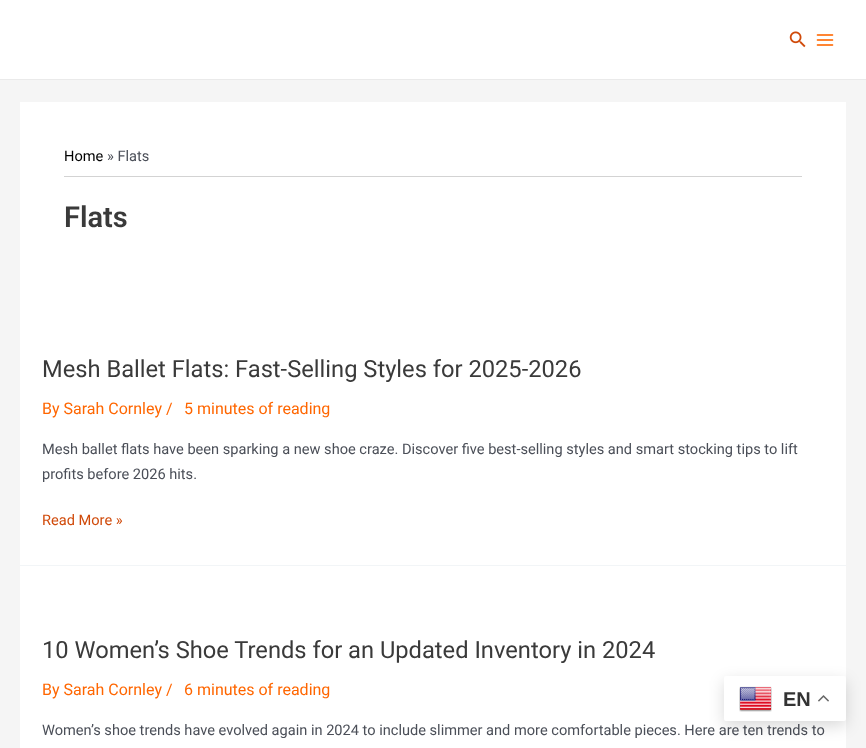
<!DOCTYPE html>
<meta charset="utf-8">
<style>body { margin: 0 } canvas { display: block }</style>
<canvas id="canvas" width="866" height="748"></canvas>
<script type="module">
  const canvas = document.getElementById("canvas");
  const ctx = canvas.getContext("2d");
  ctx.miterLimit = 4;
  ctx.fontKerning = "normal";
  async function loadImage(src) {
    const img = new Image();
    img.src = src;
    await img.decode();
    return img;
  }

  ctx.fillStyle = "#f5f5f5";
  ctx.fillRect(0, 0, 866, 748);
  ctx.fillStyle = "#ffffff";
  ctx.fillRect(0, 0, 866, 79);
  ctx.fillStyle = "#eaeaea";
  ctx.fillRect(0, 79, 866, 1);
  ctx.drawImage(await loadImage("img1.png"), 789, 31, 17, 17);
  ctx.drawImage(await loadImage("img2.png"), 816, 34, 18, 12);
  ctx.fillStyle = "#ffffff";
  ctx.fillRect(20, 102, 826, 463);
  ctx.font = "14.6px Roboto";
  ctx.fillStyle = "#000000";
  ctx.fillText("Home", 64, 161);
  ctx.fillStyle = "#4b4f58";
  ctx.fillText("» Flats", 107, 161);
  ctx.fillStyle = "#d3d3d3";
  ctx.fillRect(64, 176, 738, 1);
  ctx.font = "600 29px Roboto";
  ctx.fillStyle = "#3a3a3a";
  ctx.fillText("Flats", 64, 227);
  ctx.fillStyle = "#f2f5f7";
  ctx.fillRect(20, 565, 826, 1);
  ctx.font = "23.7px Roboto";
  ctx.fillStyle = "#3a3a3a";
  ctx.fillText("Mesh Ballet Flats: Fast-Selling Styles for 2025-2026", 42, 377);
  ctx.font = "16px Roboto";
  ctx.fillStyle = "#ff6600";
  ctx.fillText("By Sarah Cornley /", 42, 414);
  ctx.fillText("5 minutes of reading", 184, 414);
  ctx.font = "14.6px Roboto";
  ctx.fillStyle = "#4b4f58";
  ctx.fillText("Mesh ballet flats have been sparking a new shoe craze. Discover five best-selling styles and smart stocking tips to lift", 42, 454);
  ctx.fillText("profits before 2026 hits.", 42, 479);
  ctx.fillStyle = "#d04a0a";
  ctx.fillText("Read More »", 42, 525);
  ctx.fillStyle = "#ffffff";
  ctx.fillRect(20, 566, 826, 182);
  ctx.font = "23.7px Roboto";
  ctx.fillStyle = "#3a3a3a";
  ctx.fillText("10 Women’s Shoe Trends for an Updated Inventory in 2024", 42, 658);
  ctx.font = "16px Roboto";
  ctx.fillStyle = "#ff6600";
  ctx.fillText("By Sarah Cornley /", 42, 695);
  ctx.fillText("6 minutes of reading", 184, 695);
  ctx.font = "14.6px Roboto";
  ctx.fillStyle = "#4b4f58";
  ctx.fillText("Women’s shoe trends have evolved again in 2024 to include slimmer and more comfortable pieces. Here are ten trends to", 42, 735);
  ctx.fillStyle = "rgba(0, 0, 0, 0.15)";
  ctx.filter = "blur(7.5px)";
  ctx.beginPath();
  ctx.roundRect(724, 681, 122, 45, 2);
  ctx.fill();
  ctx.filter = "none";
  ctx.fillStyle = "#ffffff";
  ctx.beginPath();
  ctx.roundRect(724, 676, 122, 45, 2);
  ctx.fill();
  ctx.drawImage(await loadImage("img3.png"), 739, 686, 33, 26);
  ctx.font = "bold 20px Liberation Sans";
  ctx.fillStyle = "#333333";
  ctx.fillText("EN", 783, 706);
  ctx.drawImage(await loadImage("img4.png"), 818, 695, 11, 7);
</script>
